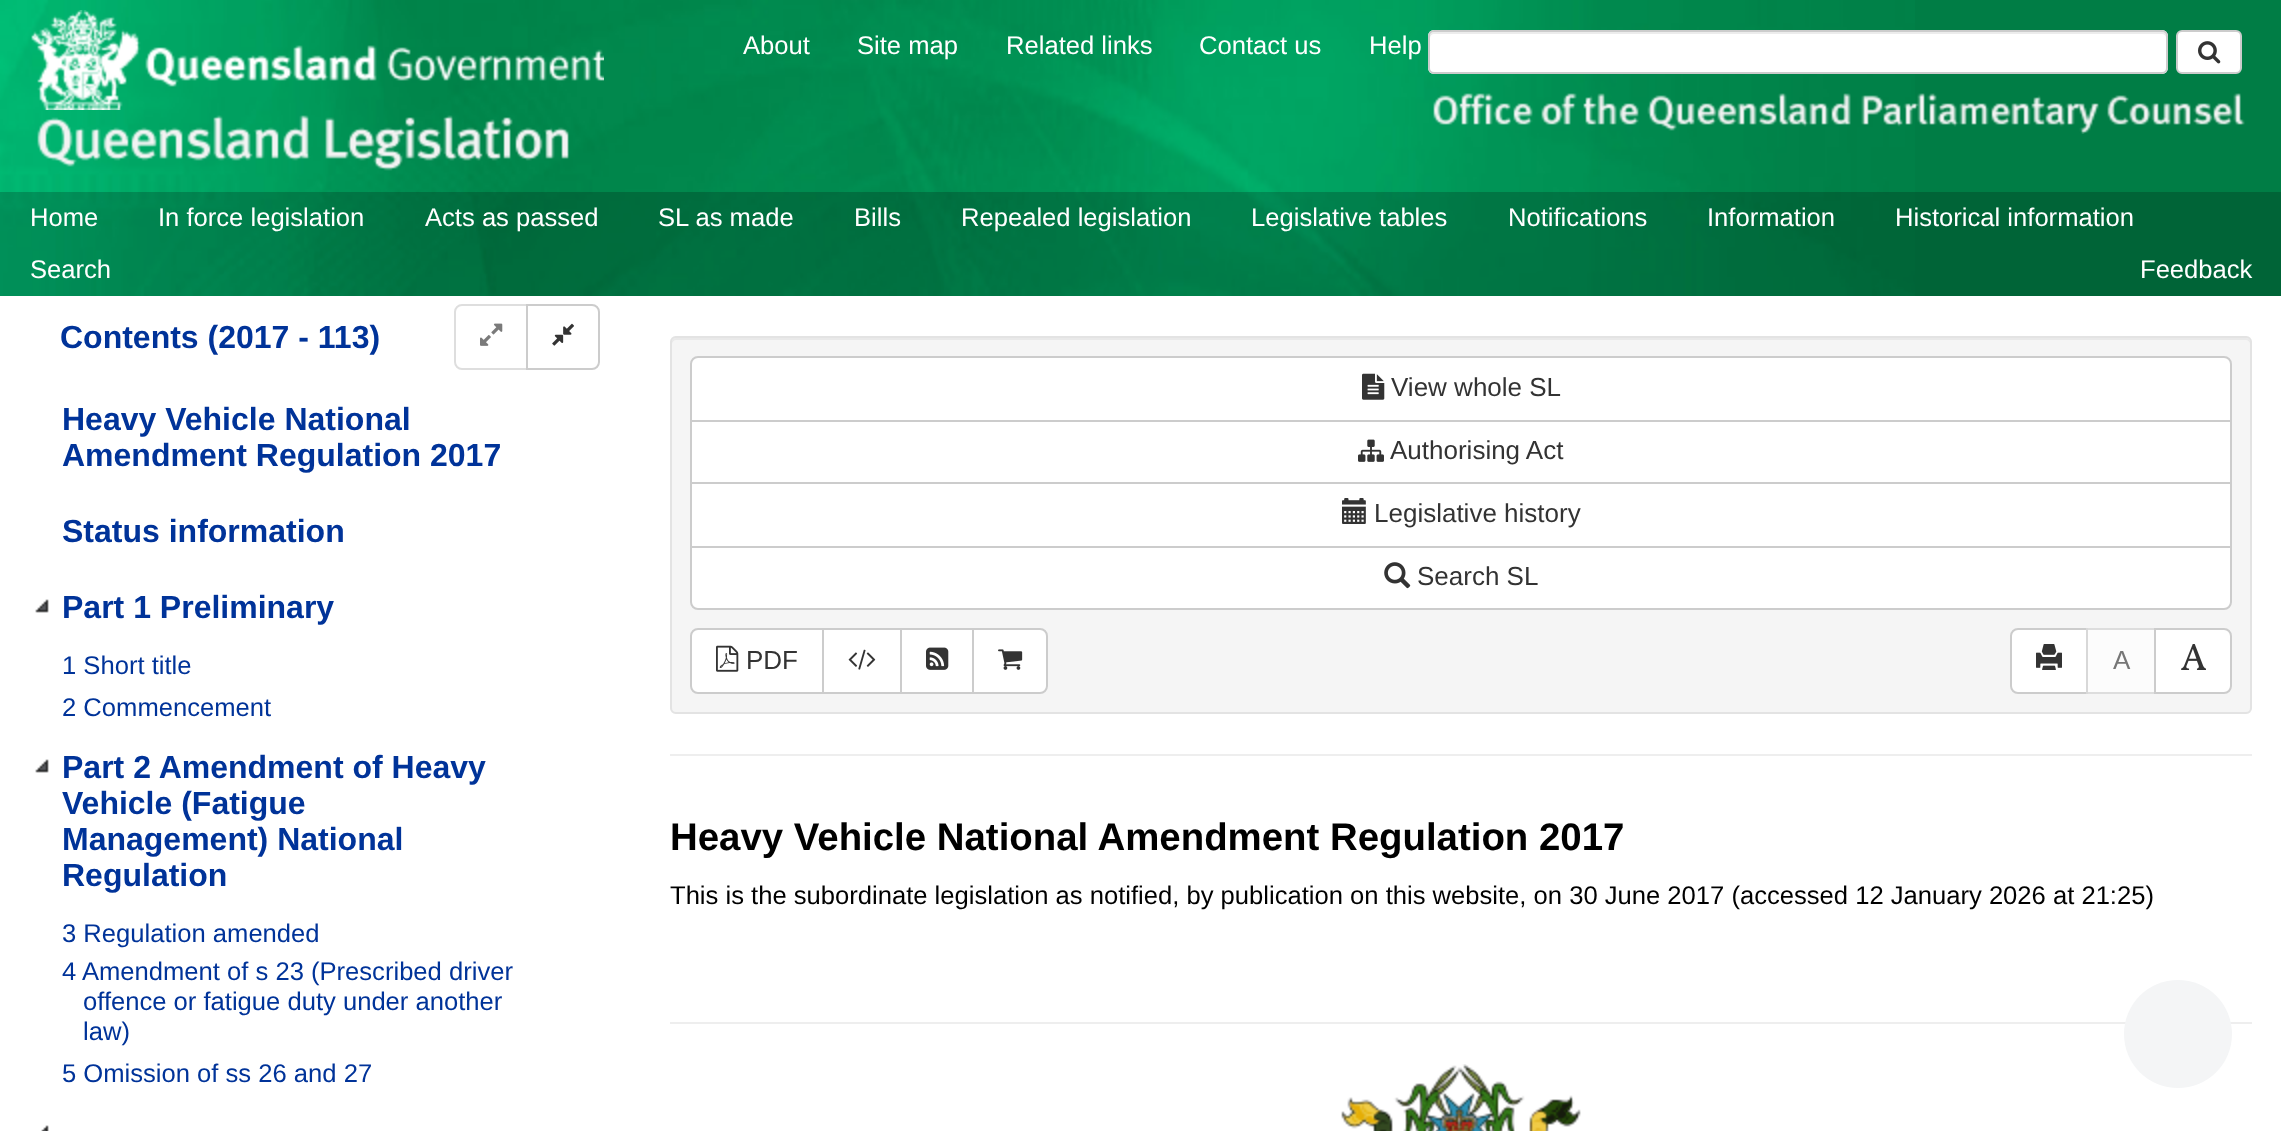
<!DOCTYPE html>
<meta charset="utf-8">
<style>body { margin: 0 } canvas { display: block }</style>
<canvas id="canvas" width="2281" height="1131"></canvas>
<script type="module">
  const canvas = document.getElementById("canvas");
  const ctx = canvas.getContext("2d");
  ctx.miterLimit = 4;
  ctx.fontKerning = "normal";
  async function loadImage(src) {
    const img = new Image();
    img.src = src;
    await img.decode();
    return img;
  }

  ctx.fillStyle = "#ffffff";
  ctx.fillRect(0, 0, 2281, 1131);
  ctx.fillStyle = "#007d45";
  ctx.fillRect(1915, 0, 366, 296);
  ctx.drawImage(await loadImage("img1.png"), 0, 0, 1915, 296);
  ctx.drawImage(await loadImage("img2.png"), 31, 10, 573, 100);
  ctx.drawImage(await loadImage("img3.png"), 37, 115, 532, 56);
  ctx.font = "25.6px Liberation Sans";
  ctx.fillStyle = "#ffffff";
  ctx.fillText("About", 743, 54);
  ctx.fillText("Site map", 857, 54);
  ctx.fillText("Related links", 1006, 54);
  ctx.fillText("Contact us", 1199, 54);
  ctx.fillText("Help", 1369, 54);
  ctx.beginPath();
  ctx.roundRect(1428, 30, 740, 44, 6);
  ctx.fill();
  ctx.fillStyle = "#ececec";
  ctx.beginPath();
  ctx.moveTo(1434, 34);
  ctx.lineTo(2162, 34);
  ctx.bezierCurveTo(2164, 34, 2166, 36, 2166, 38);
  ctx.bezierCurveTo(2166, 35, 2166, 32, 2162, 32);
  ctx.lineTo(1434, 32);
  ctx.bezierCurveTo(1430, 32, 1430, 35, 1430, 38);
  ctx.bezierCurveTo(1430, 36, 1432, 34, 1434, 34);
  ctx.closePath();
  ctx.fill();
  ctx.beginPath();
  ctx.roundRect(1429, 31, 738, 42, 5);
  ctx.strokeStyle = "#cccccc";
  ctx.lineWidth = 2;
  ctx.stroke();
  ctx.fillStyle = "#ffffff";
  ctx.beginPath();
  ctx.roundRect(2177, 31, 64, 42, 5);
  ctx.fill();
  ctx.stroke();
  ctx.drawImage(await loadImage("img4.png"), 2198, 41, 23, 23);
  ctx.drawImage(await loadImage("img5.png"), 1433, 93, 812, 41);
  ctx.fillStyle = "rgba(0, 0, 0, 0.2)";
  ctx.fillRect(0, 192, 2281, 104);
  ctx.fillStyle = "#ffffff";
  ctx.fillText("Home", 30, 226);
  ctx.fillText("In force legislation", 158, 226);
  ctx.fillText("Acts as passed", 425, 226);
  ctx.fillText("SL as made", 658, 226);
  ctx.fillText("Bills", 854, 226);
  ctx.fillText("Repealed legislation", 961, 226);
  ctx.fillText("Legislative tables", 1251, 226);
  ctx.fillText("Notifications", 1508, 226);
  ctx.fillText("Information", 1707, 226);
  ctx.fillText("Historical information", 1895, 226);
  ctx.fillText("Search", 30, 278);
  ctx.fillText("Feedback", 2140, 278);
  ctx.font = "bold 32px Liberation Sans";
  ctx.fillStyle = "#003399";
  ctx.fillText("Contents (2017 - 113)", 60, 348);
  ctx.beginPath();
  ctx.roundRect(455, 305, 72, 64, [7, 0, 0, 7]);
  ctx.strokeStyle = "#dedede";
  ctx.stroke();
  ctx.drawImage(await loadImage("img6.png"), 480, 323, 23, 23);
  ctx.fillStyle = "#ffffff";
  ctx.beginPath();
  ctx.roundRect(527, 305, 72, 64, [0, 7, 7, 0]);
  ctx.fill();
  ctx.strokeStyle = "#cccccc";
  ctx.stroke();
  ctx.drawImage(await loadImage("img7.png"), 552, 323, 22, 23);
  ctx.fillStyle = "#003399";
  ctx.fillText("Heavy Vehicle National", 62, 430);
  ctx.fillText("Amendment Regulation 2017", 62, 466);
  ctx.fillText("Status information", 62, 542);
  ctx.drawImage(await loadImage("img8.png"), 35, 599, 14, 14);
  ctx.fillText("Part 1 Preliminary", 62, 618);
  ctx.font = "25.6px Liberation Sans";
  ctx.fillText("1 Short title", 62, 674);
  ctx.fillText("2 Commencement", 62, 716);
  ctx.drawImage(await loadImage("img8.png"), 35, 759, 14, 14);
  ctx.font = "bold 32px Liberation Sans";
  ctx.fillText("Part 2 Amendment of Heavy", 62, 778);
  ctx.fillText("Vehicle (Fatigue", 62, 814);
  ctx.fillText("Management) National", 62, 850);
  ctx.fillText("Regulation", 62, 886);
  ctx.font = "25.6px Liberation Sans";
  ctx.fillText("3 Regulation amended", 62, 942);
  ctx.fillText("4 Amendment of s 23 (Prescribed driver", 62, 980);
  ctx.fillText("offence or fatigue duty under another", 83, 1010);
  ctx.fillText("law)", 83, 1040);
  ctx.fillText("5 Omission of ss 26 and 27", 62, 1082);
  ctx.drawImage(await loadImage("img9.png"), 41, 1125, 8, 6);
  ctx.fillStyle = "#f5f5f5";
  ctx.beginPath();
  ctx.roundRect(670, 336, 1582, 378, 6);
  ctx.fill();
  ctx.fillStyle = "#e9e9e9";
  ctx.beginPath();
  ctx.moveTo(676, 340);
  ctx.lineTo(2246, 340);
  ctx.bezierCurveTo(2248, 340, 2250, 342, 2250, 344);
  ctx.bezierCurveTo(2250, 341, 2250, 338, 2246, 338);
  ctx.lineTo(676, 338);
  ctx.bezierCurveTo(672, 338, 672, 341, 672, 344);
  ctx.bezierCurveTo(672, 342, 674, 340, 676, 340);
  ctx.closePath();
  ctx.fill();
  ctx.beginPath();
  ctx.roundRect(671, 337, 1580, 376, 5);
  ctx.strokeStyle = "#e3e3e3";
  ctx.stroke();
  ctx.fillStyle = "#ffffff";
  ctx.beginPath();
  ctx.roundRect(691, 357, 1540, 64, [7, 7, 0, 0]);
  ctx.fill();
  ctx.strokeStyle = "#cccccc";
  ctx.stroke();
  ctx.drawImage(await loadImage("img10.png"), 1362, 373, 23, 27);
  ctx.font = "26px Liberation Sans";
  ctx.fillStyle = "#333333";
  ctx.fillText("View whole SL", 1391, 396);
  ctx.fillStyle = "#ffffff";
  ctx.beginPath();
  ctx.rect(691, 421, 1540, 62);
  ctx.fill();
  ctx.stroke();
  ctx.drawImage(await loadImage("img11.png"), 1358, 439, 26, 23);
  ctx.fillStyle = "#333333";
  ctx.fillText("Authorising Act", 1390, 459);
  ctx.fillStyle = "#ffffff";
  ctx.beginPath();
  ctx.rect(691, 483, 1540, 64);
  ctx.fill();
  ctx.stroke();
  ctx.drawImage(await loadImage("img12.png"), 1342, 498, 24, 26);
  ctx.fillStyle = "#333333";
  ctx.fillText("Legislative history", 1374, 522);
  ctx.fillStyle = "#ffffff";
  ctx.beginPath();
  ctx.roundRect(691, 547, 1540, 62, [0, 0, 7, 7]);
  ctx.fill();
  ctx.stroke();
  ctx.drawImage(await loadImage("img13.png"), 1384, 562, 27, 27);
  ctx.fillStyle = "#333333";
  ctx.fillText("Search SL", 1417, 585);
  ctx.fillStyle = "#ffffff";
  ctx.beginPath();
  ctx.roundRect(691, 629, 132, 64, [7, 0, 0, 7]);
  ctx.fill();
  ctx.stroke();
  ctx.drawImage(await loadImage("img14.png"), 716, 645, 23, 27);
  ctx.fillStyle = "#333333";
  ctx.fillText("PDF", 746, 669);
  ctx.fillStyle = "#ffffff";
  ctx.beginPath();
  ctx.rect(823, 629, 78, 64);
  ctx.fill();
  ctx.stroke();
  ctx.drawImage(await loadImage("img15.png"), 848, 649, 28, 21);
  ctx.beginPath();
  ctx.rect(901, 629, 72, 64);
  ctx.fill();
  ctx.stroke();
  ctx.drawImage(await loadImage("img16.png"), 926, 647, 23, 23);
  ctx.beginPath();
  ctx.roundRect(973, 629, 74, 64, [0, 7, 7, 0]);
  ctx.fill();
  ctx.stroke();
  ctx.drawImage(await loadImage("img17.png"), 998, 649, 25, 21);
  ctx.beginPath();
  ctx.roundRect(2011, 629, 76, 64, [7, 0, 0, 7]);
  ctx.fill();
  ctx.stroke();
  ctx.drawImage(await loadImage("img18.png"), 2036, 644, 26, 26);
  ctx.fillStyle = "rgba(255, 255, 255, 0.65)";
  ctx.fillRect(2086, 628, 68, 66);
  ctx.strokeStyle = "rgba(204, 204, 204, 0.65)";
  ctx.strokeRect(2087, 629, 68, 64);
  ctx.fillStyle = "#777777";
  ctx.fillText("A", 2113, 669);
  ctx.fillStyle = "#ffffff";
  ctx.beginPath();
  ctx.roundRect(2155, 629, 76, 64, [0, 7, 7, 0]);
  ctx.fill();
  ctx.strokeStyle = "#cccccc";
  ctx.stroke();
  ctx.drawImage(await loadImage("img19.png"), 2181, 644, 25, 26);
  ctx.fillStyle = "#eeeeee";
  ctx.fillRect(670, 754, 1582, 2);
  ctx.font = "bold 38.4px Liberation Sans";
  ctx.fillStyle = "#000000";
  ctx.fillText("Heavy Vehicle National Amendment Regulation 2017", 670, 850);
  ctx.font = "25.6px Liberation Sans";
  ctx.fillText("This is the subordinate legislation as notified, by publication on this website, on 30 June 2017 (accessed 12 January 2026 at 21:25)", 670, 904);
  ctx.fillStyle = "#eeeeee";
  ctx.fillRect(670, 1022, 1582, 2);
  ctx.drawImage(await loadImage("img20.png"), 1341, 1064, 240, 67);
  ctx.fillStyle = "#f4f5f6";
  ctx.beginPath();
  ctx.arc(2178, 1034, 54, 0, Math.PI * 2);
  ctx.fill();
</script>
